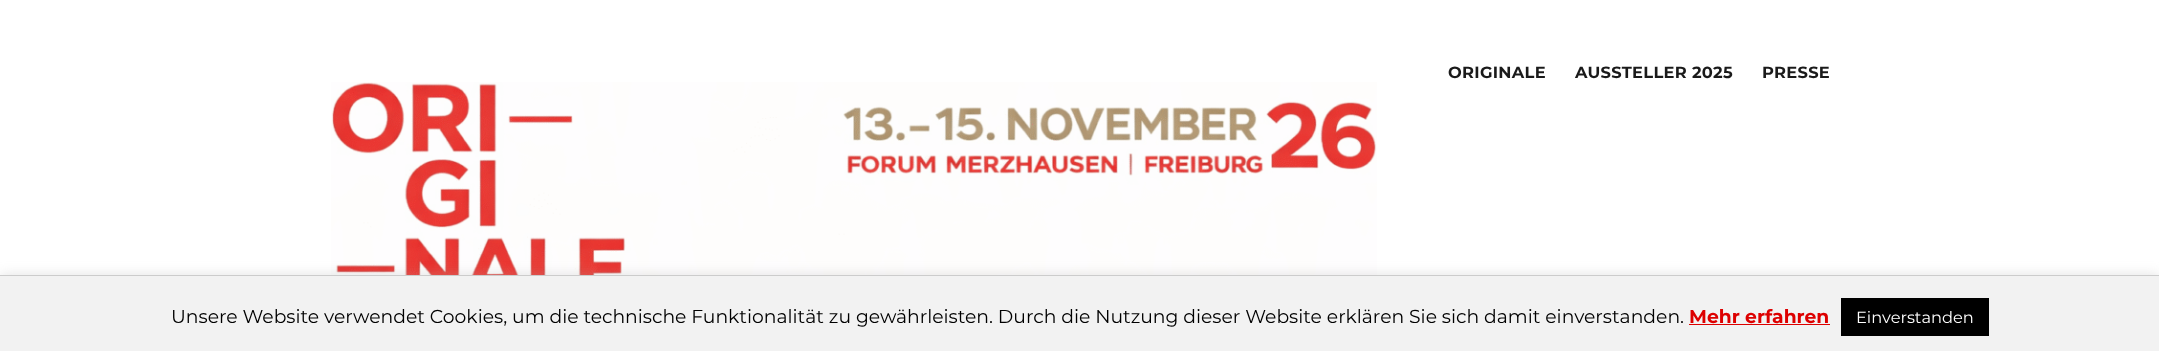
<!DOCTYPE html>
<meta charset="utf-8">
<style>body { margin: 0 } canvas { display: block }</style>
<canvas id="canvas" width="2159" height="351"></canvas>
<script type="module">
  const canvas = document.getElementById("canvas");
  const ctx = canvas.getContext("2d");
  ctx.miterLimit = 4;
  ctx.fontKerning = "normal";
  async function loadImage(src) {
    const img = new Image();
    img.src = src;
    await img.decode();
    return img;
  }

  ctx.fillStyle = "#ffffff";
  ctx.fillRect(0, 0, 2159, 351);
  ctx.letterSpacing = "0.3px";
  ctx.font = "100 16.25px Montserrat";
  ctx.fillStyle = "#1a1a1a";
  ctx.fillText("ORIGINALE", 1448, 78);
  ctx.fillText("AUSSTELLER 2025", 1575, 78);
  ctx.fillText("PRESSE", 1762, 78);
  ctx.drawImage(await loadImage("img1.png"), 331, 82, 1046, 193);
  ctx.fillStyle = "rgba(172, 171, 171, 0.3)";
  ctx.filter = "blur(6px)";
  ctx.beginPath();
  ctx.rect(0, 274, 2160, 76);
  ctx.fill();
  ctx.filter = "none";
  ctx.fillStyle = "#f2f2f2";
  ctx.fillRect(0, 276, 2159, 75);
  ctx.fillStyle = "#cccccc";
  ctx.fillRect(0, 275, 2159, 1);
  ctx.letterSpacing = "0px";
  ctx.font = "100 18.75px 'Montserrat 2'";
  ctx.fillStyle = "#000000";
  ctx.fillText("Unsere Website verwendet Cookies, um die technische Funktionalität zu gewährleisten. Durch die Nutzung dieser Website erklären Sie sich damit einverstanden.", 171, 323);
  ctx.font = "100 18.75px Montserrat";
  ctx.fillStyle = "#dd0000";
  ctx.fillText("Mehr erfahren", 1689, 323);
  ctx.fillRect(1689, 324, 141, 1);
  ctx.fillStyle = "#000000";
  ctx.fillRect(1841, 298, 148, 38);
  ctx.font = "100 16.25px 'Montserrat 2'";
  ctx.fillStyle = "#ffffff";
  ctx.fillText("Einverstanden", 1856, 323);
</script>
